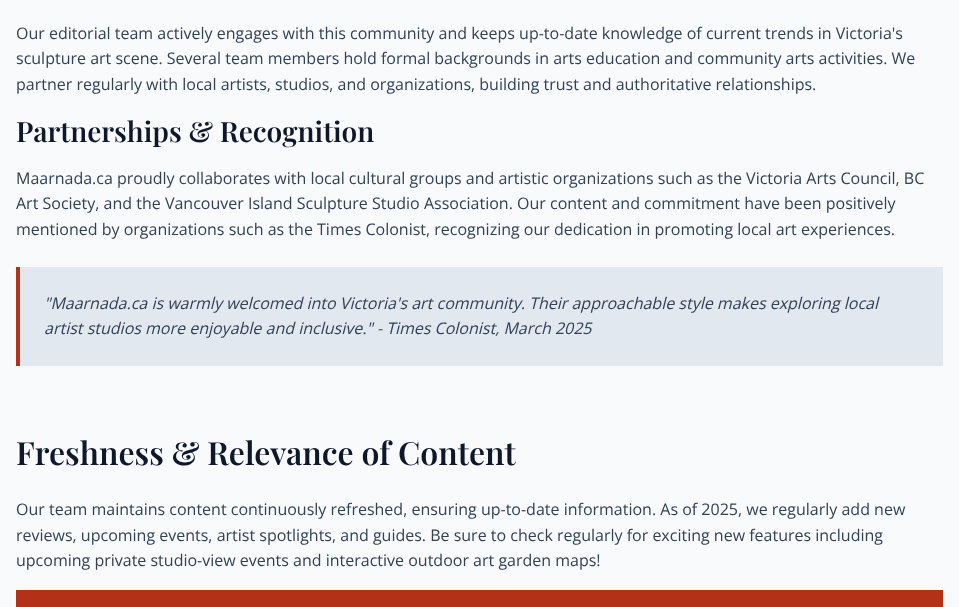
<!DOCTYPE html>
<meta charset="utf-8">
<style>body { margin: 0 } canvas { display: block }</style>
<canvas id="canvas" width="959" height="607"></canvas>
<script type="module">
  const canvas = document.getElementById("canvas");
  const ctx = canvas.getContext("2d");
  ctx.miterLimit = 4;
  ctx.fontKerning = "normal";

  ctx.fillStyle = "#f8fafc";
  ctx.fillRect(0, 0, 959, 607);
  ctx.font = "16px Open Sans";
  ctx.fillStyle = "#334155";
  ctx.fillText("Our editorial team actively engages with this community and keeps up-to-date knowledge of current trends in Victoria's", 16, 39);
  ctx.fillText("sculpture art scene. Several team members hold formal backgrounds in arts education and community arts activities. We", 16, 64);
  ctx.fillText("partner regularly with local artists, studios, and organizations, building trust and authoritative relationships.", 16, 90);
  ctx.font = "600 28px Playfair Display";
  ctx.fillStyle = "#0f172a";
  ctx.fillText("Partnerships & Recognition", 16, 142);
  ctx.font = "16px Open Sans";
  ctx.fillStyle = "#334155";
  ctx.fillText("Maarnada.ca proudly collaborates with local cultural groups and artistic organizations such as the Victoria Arts Council, BC", 16, 184);
  ctx.fillText("Art Society, and the Vancouver Island Sculpture Studio Association. Our content and commitment have been positively", 16, 209);
  ctx.fillText("mentioned by organizations such as the Times Colonist, recognizing our dedication in promoting local art experiences.", 16, 235);
  ctx.fillStyle = "#e2e8f0";
  ctx.fillRect(20, 267, 923, 99);
  ctx.fillStyle = "#b43119";
  ctx.fillRect(16, 267, 4, 99);
  ctx.font = "italic 16px Open Sans";
  ctx.fillStyle = "#334155";
  ctx.fillText("\"Maarnada.ca is warmly welcomed into Victoria's art community. Their approachable style makes exploring local", 44, 309);
  ctx.fillText("artist studios more enjoyable and inclusive.\" - Times Colonist, March 2025", 44, 334);
  ctx.font = "600 32px Playfair Display";
  ctx.fillStyle = "#0f172a";
  ctx.fillText("Freshness & Relevance of Content", 16, 465);
  ctx.font = "16px Open Sans";
  ctx.fillStyle = "#334155";
  ctx.fillText("Our team maintains content continuously refreshed, ensuring up-to-date information. As of 2025, we regularly add new", 16, 515);
  ctx.fillText("reviews, upcoming events, artist spotlights, and guides. Be sure to check regularly for exciting new features including", 16, 541);
  ctx.fillText("upcoming private studio-view events and interactive outdoor art garden maps!", 16, 566);
  ctx.fillStyle = "#b43119";
  ctx.fillRect(16, 590, 927, 17);
</script>
